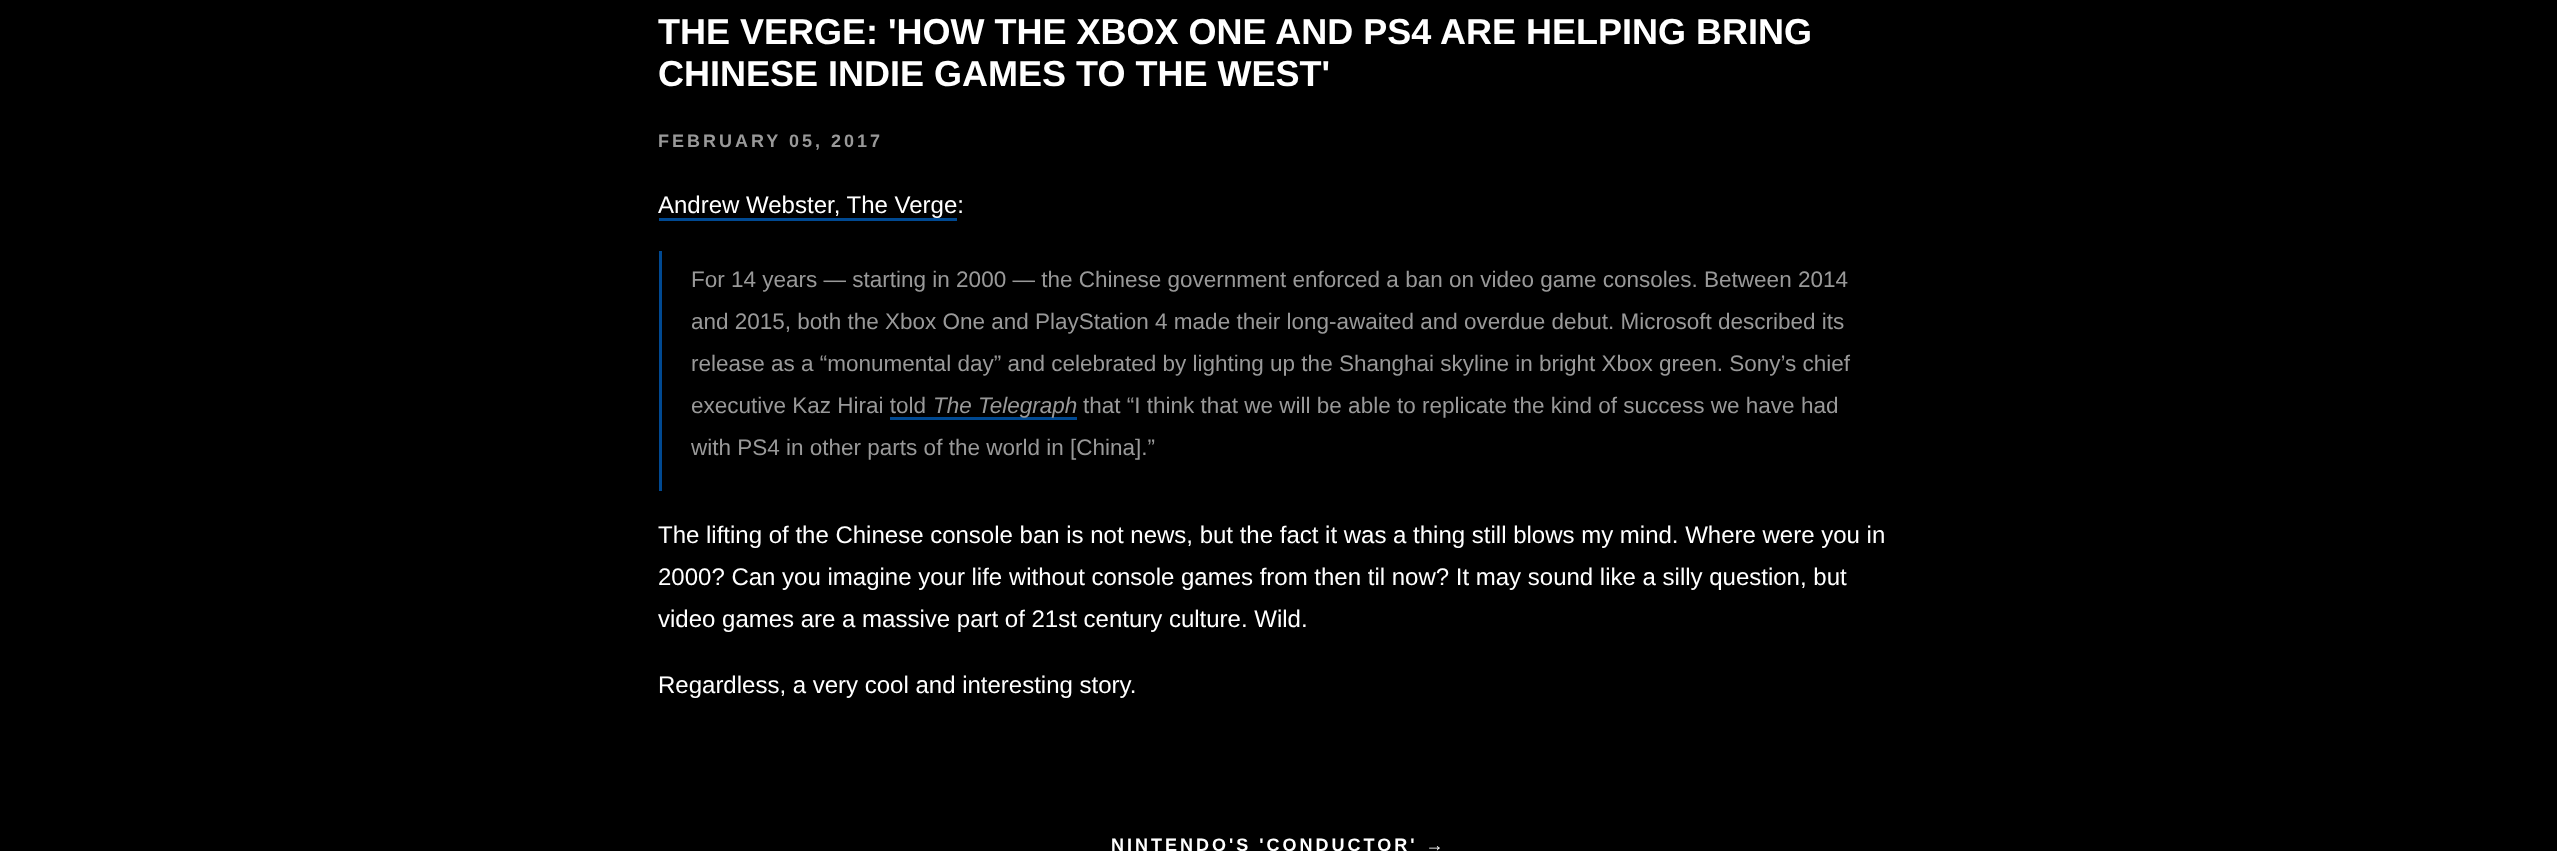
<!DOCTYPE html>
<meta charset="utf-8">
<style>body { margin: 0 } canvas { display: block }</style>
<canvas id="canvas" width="2557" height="851"></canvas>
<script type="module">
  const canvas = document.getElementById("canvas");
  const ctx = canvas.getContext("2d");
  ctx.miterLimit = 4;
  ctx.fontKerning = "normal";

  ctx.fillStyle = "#000000";
  ctx.fillRect(0, 0, 2557, 851);
  ctx.font = "bold 36px Liberation Sans";
  ctx.fillStyle = "#ffffff";
  ctx.fillText("THE VERGE: 'HOW THE XBOX ONE AND PS4 ARE HELPING BRING", 658, 44);
  ctx.fillText("CHINESE INDIE GAMES TO THE WEST'", 658, 86);
  ctx.letterSpacing = "3px";
  ctx.font = "bold 18px Liberation Sans";
  ctx.fillStyle = "#999999";
  ctx.fillText("FEBRUARY 05, 2017", 658, 147);
  ctx.letterSpacing = "0px";
  ctx.font = "24px Liberation Sans";
  ctx.fillStyle = "#ffffff";
  ctx.fillText("Andrew Webster, The Verge:", 658, 213);
  ctx.fillStyle = "#004992";
  ctx.fillRect(659, 218, 298, 3);
  ctx.fillRect(659, 251, 3, 240);
  ctx.font = "22.5px Liberation Sans";
  ctx.fillStyle = "#999999";
  ctx.fillText("For 14 years — starting in 2000 — the Chinese government enforced a ban on video game consoles. Between 2014", 691, 287);
  ctx.fillText("and 2015, both the Xbox One and PlayStation 4 made their long-awaited and overdue debut. Microsoft described its", 691, 329);
  ctx.fillText("release as a “monumental day” and celebrated by lighting up the Shanghai skyline in bright Xbox green. Sony’s chief", 691, 371);
  ctx.fillText("executive Kaz Hirai told", 691, 413);
  ctx.fillStyle = "#004992";
  ctx.fillRect(890, 417, 187, 3);
  ctx.font = "italic 22.5px Liberation Sans";
  ctx.fillStyle = "#999999";
  ctx.fillText("The Telegraph", 933, 413);
  ctx.font = "22.5px Liberation Sans";
  ctx.fillText("that “I think that we will be able to replicate the kind of success we have had", 1083, 413);
  ctx.fillText("with PS4 in other parts of the world in [China].”", 691, 455);
  ctx.font = "24px Liberation Sans";
  ctx.fillStyle = "#ffffff";
  ctx.fillText("The lifting of the Chinese console ban is not news, but the fact it was a thing still blows my mind. Where were you in", 658, 543);
  ctx.fillText("2000? Can you imagine your life without console games from then til now? It may sound like a silly question, but", 658, 585);
  ctx.fillText("video games are a massive part of 21st century culture. Wild.", 658, 627);
  ctx.fillText("Regardless, a very cool and interesting story.", 658, 693);
  ctx.letterSpacing = "3px";
  ctx.font = "bold 18px Liberation Sans";
  ctx.fillText("NINTENDO'S 'CONDUCTOR' →", 1111, 851);
</script>
